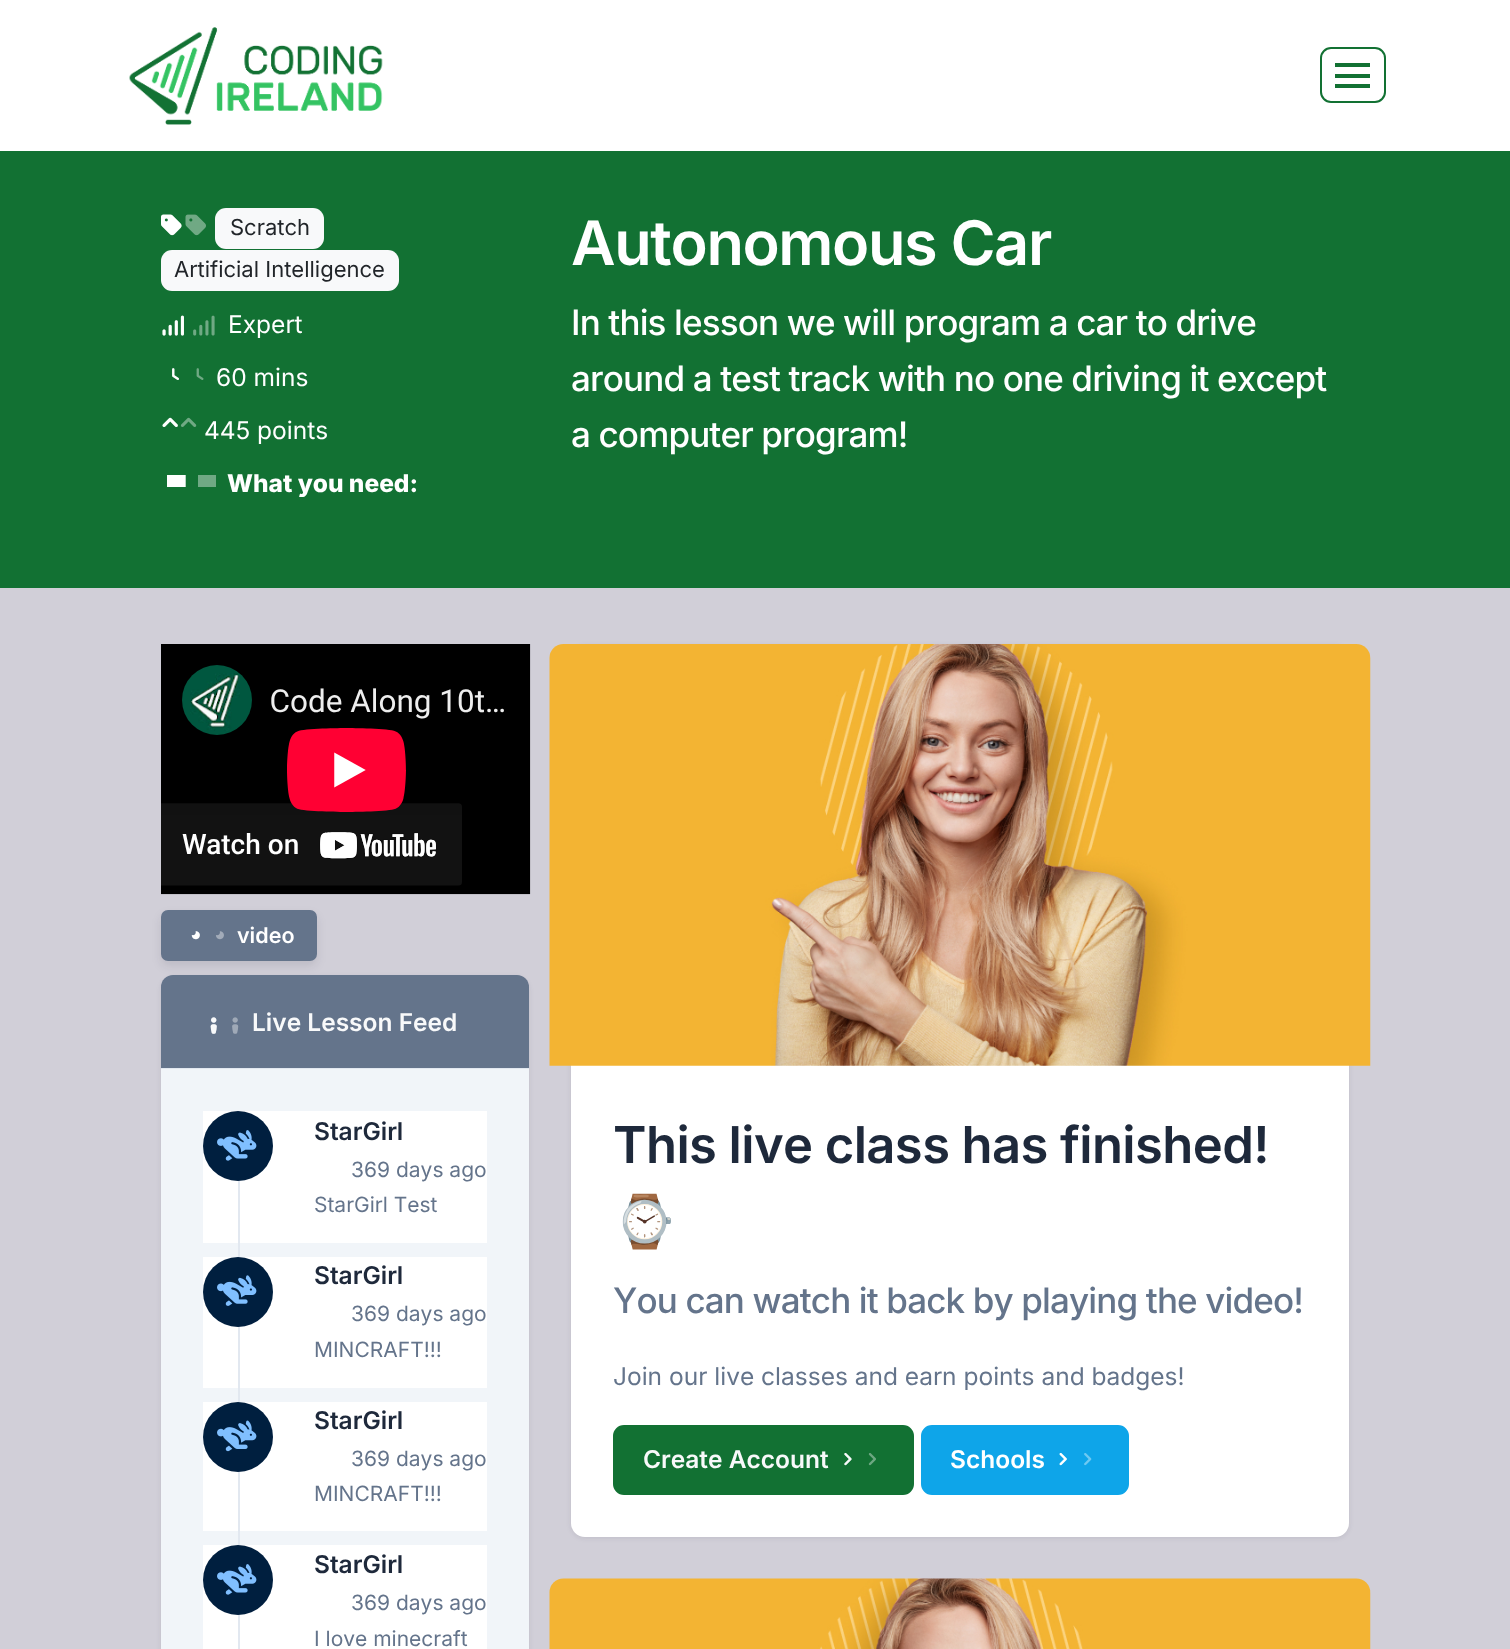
<!DOCTYPE html>
<meta charset="utf-8">
<style>body { margin: 0 } canvas { display: block }</style>
<canvas id="canvas" width="1510" height="1649"></canvas>
<script type="module">
  const canvas = document.getElementById("canvas");
  const ctx = canvas.getContext("2d");
  ctx.miterLimit = 4;
  ctx.fontKerning = "none";
  async function loadImage(src) {
    const img = new Image();
    img.src = src;
    await img.decode();
    return img;
  }

  ctx.fillStyle = "#127133";
  ctx.fillRect(0, 0, 1510, 1649);
  ctx.fillStyle = "#ffffff";
  ctx.fillRect(0, 0, 1510, 151);
  ctx.drawImage(await loadImage("img1.png"), 129, 27, 254, 98);
  ctx.beginPath();
  ctx.roundRect(1321, 48, 64, 54, 10);
  ctx.strokeStyle = "#127133";
  ctx.lineWidth = 2;
  ctx.stroke();
  ctx.fillStyle = "#127133";
  ctx.fillRect(1335, 63, 35, 4);
  ctx.fillRect(1335, 74, 35, 4);
  ctx.fillRect(1335, 84, 35, 4);
  ctx.drawImage(await loadImage("img2.png"), 161, 214, 21, 22);
  ctx.drawImage(await loadImage("img3.png"), 161, 214, 45, 22);
  ctx.fillStyle = "#f8f9fa";
  ctx.beginPath();
  ctx.roundRect(215, 208, 109, 41, 11);
  ctx.fill();
  ctx.font = "22px Inter";
  ctx.fillStyle = "#212529";
  ctx.fillText("Scratch", 230, 235);
  ctx.fillStyle = "#f8f9fa";
  ctx.beginPath();
  ctx.roundRect(161, 250, 238, 41, 11);
  ctx.fill();
  ctx.fillStyle = "#212529";
  ctx.fillText("Artificial Intelligence", 174, 277);
  ctx.drawImage(await loadImage("img4.png"), 162, 315, 22, 21);
  ctx.drawImage(await loadImage("img5.png"), 162, 315, 53, 21);
  ctx.font = "24.5px Inter";
  ctx.fillStyle = "#ffffff";
  ctx.fillText("Expert", 228, 333);
  ctx.drawImage(await loadImage("img6.png"), 172, 368, 7, 12);
  ctx.drawImage(await loadImage("img7.png"), 172, 368, 32, 12);
  ctx.fillText("60 mins", 216, 386);
  ctx.drawImage(await loadImage("img8.png"), 162, 417, 16, 10);
  ctx.drawImage(await loadImage("img9.png"), 162, 417, 35, 10);
  ctx.fillText("445 points", 204, 439);
  ctx.beginPath();
  ctx.moveTo(167, 475);
  ctx.lineTo(185.5, 475);
  ctx.lineTo(167, 475);
  ctx.lineTo(185.5, 475);
  ctx.lineTo(185.5, 487);
  ctx.lineTo(167, 487);
  ctx.closePath();
  ctx.fill();
  ctx.fillStyle = "rgba(255, 255, 255, 0.4)";
  ctx.beginPath();
  ctx.moveTo(167, 475);
  ctx.lineTo(186, 475);
  ctx.lineTo(167, 475);
  ctx.lineTo(186, 475);
  ctx.lineTo(186, 487);
  ctx.lineTo(167, 487);
  ctx.closePath();
  ctx.moveTo(198, 475);
  ctx.lineTo(216, 475);
  ctx.lineTo(198, 475);
  ctx.lineTo(216, 475);
  ctx.lineTo(216, 487);
  ctx.lineTo(198, 487);
  ctx.closePath();
  ctx.fill();
  ctx.font = "800 24.5px Inter";
  ctx.fillStyle = "#ffffff";
  ctx.fillText("What you need:", 227, 492);
  ctx.letterSpacing = "-1.4px";
  ctx.font = "600 61.25px Inter";
  ctx.fillText("Autonomous Car", 571, 265);
  ctx.letterSpacing = "-0.85px";
  ctx.font = "500 35px Inter";
  ctx.fillText("In this lesson we will program a car to drive", 571, 335);
  ctx.fillText("around a test track with no one driving it except", 571, 391);
  ctx.fillText("a computer program!", 571, 447);
  ctx.fillStyle = "#d1cfd8";
  ctx.fillRect(0, 588, 1510, 1061);
  ctx.drawImage(await loadImage("img10.png"), 161, 644, 370, 251);
  ctx.fillStyle = "rgba(17, 24, 39, 0.1)";
  ctx.filter = "blur(5px)";
  ctx.beginPath();
  ctx.roundRect(161, 915, 156, 51, 7);
  ctx.fill();
  ctx.filter = "none";
  ctx.fillStyle = "#64748b";
  ctx.beginPath();
  ctx.roundRect(162, 911, 154, 49, 6);
  ctx.fill();
  ctx.strokeStyle = "#64748b";
  ctx.stroke();
  ctx.drawImage(await loadImage("img11.png"), 191, 931, 9, 9);
  ctx.drawImage(await loadImage("img12.png"), 191, 931, 33, 9);
  ctx.letterSpacing = "0px";
  ctx.font = "600 21.5px Inter";
  ctx.fillStyle = "#ffffff";
  ctx.fillText("video", 237, 943);
  ctx.fillStyle = "rgba(17, 24, 39, 0.09)";
  ctx.filter = "blur(2.5px)";
  ctx.beginPath();
  ctx.roundRect(161, 977, 368, 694, 14);
  ctx.fill();
  ctx.filter = "none";
  ctx.fillStyle = "#64748b";
  ctx.beginPath();
  ctx.roundRect(161, 975, 368, 94, [12, 12, 0, 0]);
  ctx.fill();
  ctx.fillStyle = "#e2e8f0";
  ctx.fillRect(161, 1068, 368, 1);
  ctx.drawImage(await loadImage("img13.png"), 210, 1017, 7, 17);
  ctx.drawImage(await loadImage("img14.png"), 210, 1017, 29, 17);
  ctx.font = "600 24.5px Inter";
  ctx.fillStyle = "#f8f9fa";
  ctx.fillText("Live Lesson Feed", 252, 1031);
  ctx.fillStyle = "#f1f5f9";
  ctx.fillRect(161, 1069, 368, 580);
  ctx.fillStyle = "#ffffff";
  ctx.fillRect(203, 1111, 284, 132);
  ctx.fillStyle = "#e2e8f0";
  ctx.fillRect(238, 1180, 2, 77);
  ctx.fillStyle = "#001f3f";
  ctx.beginPath();
  ctx.arc(238, 1146, 35, 0, Math.PI * 2);
  ctx.fill();
  ctx.drawImage(await loadImage("img15.png"), 217, 1130, 40, 31);
  ctx.fillStyle = "#1e293b";
  ctx.fillText("StarGirl", 314, 1140);
  ctx.font = "21px Inter";
  ctx.fillStyle = "#64748b";
  ctx.fillText("369 days ago", 351, 1177);
  ctx.fillText("StarGirl Test", 314, 1212);
  ctx.fillStyle = "#ffffff";
  ctx.fillRect(203, 1257, 284, 131);
  ctx.fillStyle = "#e2e8f0";
  ctx.fillRect(238, 1326, 2, 76);
  ctx.fillStyle = "#001f3f";
  ctx.beginPath();
  ctx.arc(238, 1292, 35, 0, Math.PI * 2);
  ctx.fill();
  ctx.drawImage(await loadImage("img16.png"), 217, 1275, 40, 31);
  ctx.font = "600 24.5px Inter";
  ctx.fillStyle = "#1e293b";
  ctx.fillText("StarGirl", 314, 1284);
  ctx.font = "21px Inter";
  ctx.fillStyle = "#64748b";
  ctx.fillText("369 days ago", 351, 1321);
  ctx.fillText("MINCRAFT!!!", 314, 1357);
  ctx.fillStyle = "#ffffff";
  ctx.fillRect(203, 1402, 284, 129);
  ctx.fillStyle = "#e2e8f0";
  ctx.fillRect(238, 1471, 2, 74);
  ctx.fillStyle = "#001f3f";
  ctx.beginPath();
  ctx.arc(238, 1437, 35, 0, Math.PI * 2);
  ctx.fill();
  ctx.drawImage(await loadImage("img17.png"), 217, 1420, 40, 32);
  ctx.font = "600 24.5px Inter";
  ctx.fillStyle = "#1e293b";
  ctx.fillText("StarGirl", 314, 1429);
  ctx.font = "21px Inter";
  ctx.fillStyle = "#64748b";
  ctx.fillText("369 days ago", 351, 1466);
  ctx.fillText("MINCRAFT!!!", 314, 1501);
  ctx.fillStyle = "#ffffff";
  ctx.fillRect(203, 1545, 284, 104);
  ctx.fillStyle = "#e2e8f0";
  ctx.fillRect(238, 1614, 2, 35);
  ctx.fillStyle = "#001f3f";
  ctx.beginPath();
  ctx.arc(238, 1580, 35, 0, Math.PI * 2);
  ctx.fill();
  ctx.drawImage(await loadImage("img15.png"), 217, 1564, 40, 31);
  ctx.font = "600 24.5px Inter";
  ctx.fillStyle = "#1e293b";
  ctx.fillText("StarGirl", 314, 1573);
  ctx.font = "21px Inter";
  ctx.fillStyle = "#64748b";
  ctx.fillText("369 days ago", 351, 1610);
  ctx.fillText("I love minecraft", 314, 1646);
  ctx.fillStyle = "rgba(17, 24, 39, 0.09)";
  ctx.filter = "blur(2.5px)";
  ctx.beginPath();
  ctx.roundRect(571, 646, 778, 892, 14);
  ctx.fill();
  ctx.filter = "none";
  ctx.fillStyle = "#ffffff";
  ctx.beginPath();
  ctx.roundRect(571, 644, 778, 893, 14);
  ctx.fill();
  ctx.drawImage(await loadImage("img18.png"), 549, 644, 822, 422);
  ctx.letterSpacing = "-0.6px";
  ctx.font = "600 50.75px Inter";
  ctx.fillStyle = "#1e293b";
  ctx.fillText("This live class has finished!", 613, 1163);
  ctx.font = "bold 50.75px Noto Color Emoji";
  ctx.fillText("⌚", 613, 1239);
  ctx.letterSpacing = "-0.85px";
  ctx.font = "500 35px Inter";
  ctx.fillStyle = "#64748b";
  ctx.fillText("You can watch it back by playing the video!", 613, 1313);
  ctx.letterSpacing = "0px";
  ctx.font = "24.5px Inter";
  ctx.fillText("Join our live classes and earn points and badges!", 613, 1385);
  ctx.fillStyle = "#127133";
  ctx.beginPath();
  ctx.roundRect(614, 1426, 299, 68, 10);
  ctx.fill();
  ctx.strokeStyle = "#127133";
  ctx.stroke();
  ctx.font = "600 24.5px Inter";
  ctx.fillStyle = "#f8f9fa";
  ctx.fillText("Create Account", 643, 1468);
  ctx.drawImage(await loadImage("img19.png"), 844, 1452, 8, 14);
  ctx.drawImage(await loadImage("img20.png"), 844, 1453, 32, 13);
  ctx.fillStyle = "#0ea5e9";
  ctx.beginPath();
  ctx.roundRect(922, 1426, 206, 68, 10);
  ctx.fill();
  ctx.strokeStyle = "#0ea5e9";
  ctx.stroke();
  ctx.fillStyle = "#ffffff";
  ctx.fillText("Schools", 950, 1468);
  ctx.drawImage(await loadImage("img21.png"), 1059, 1452, 8, 14);
  ctx.drawImage(await loadImage("img22.png"), 1059, 1453, 33, 13);
  ctx.drawImage(await loadImage("img23.png"), 549, 1578, 822, 71);
</script>
